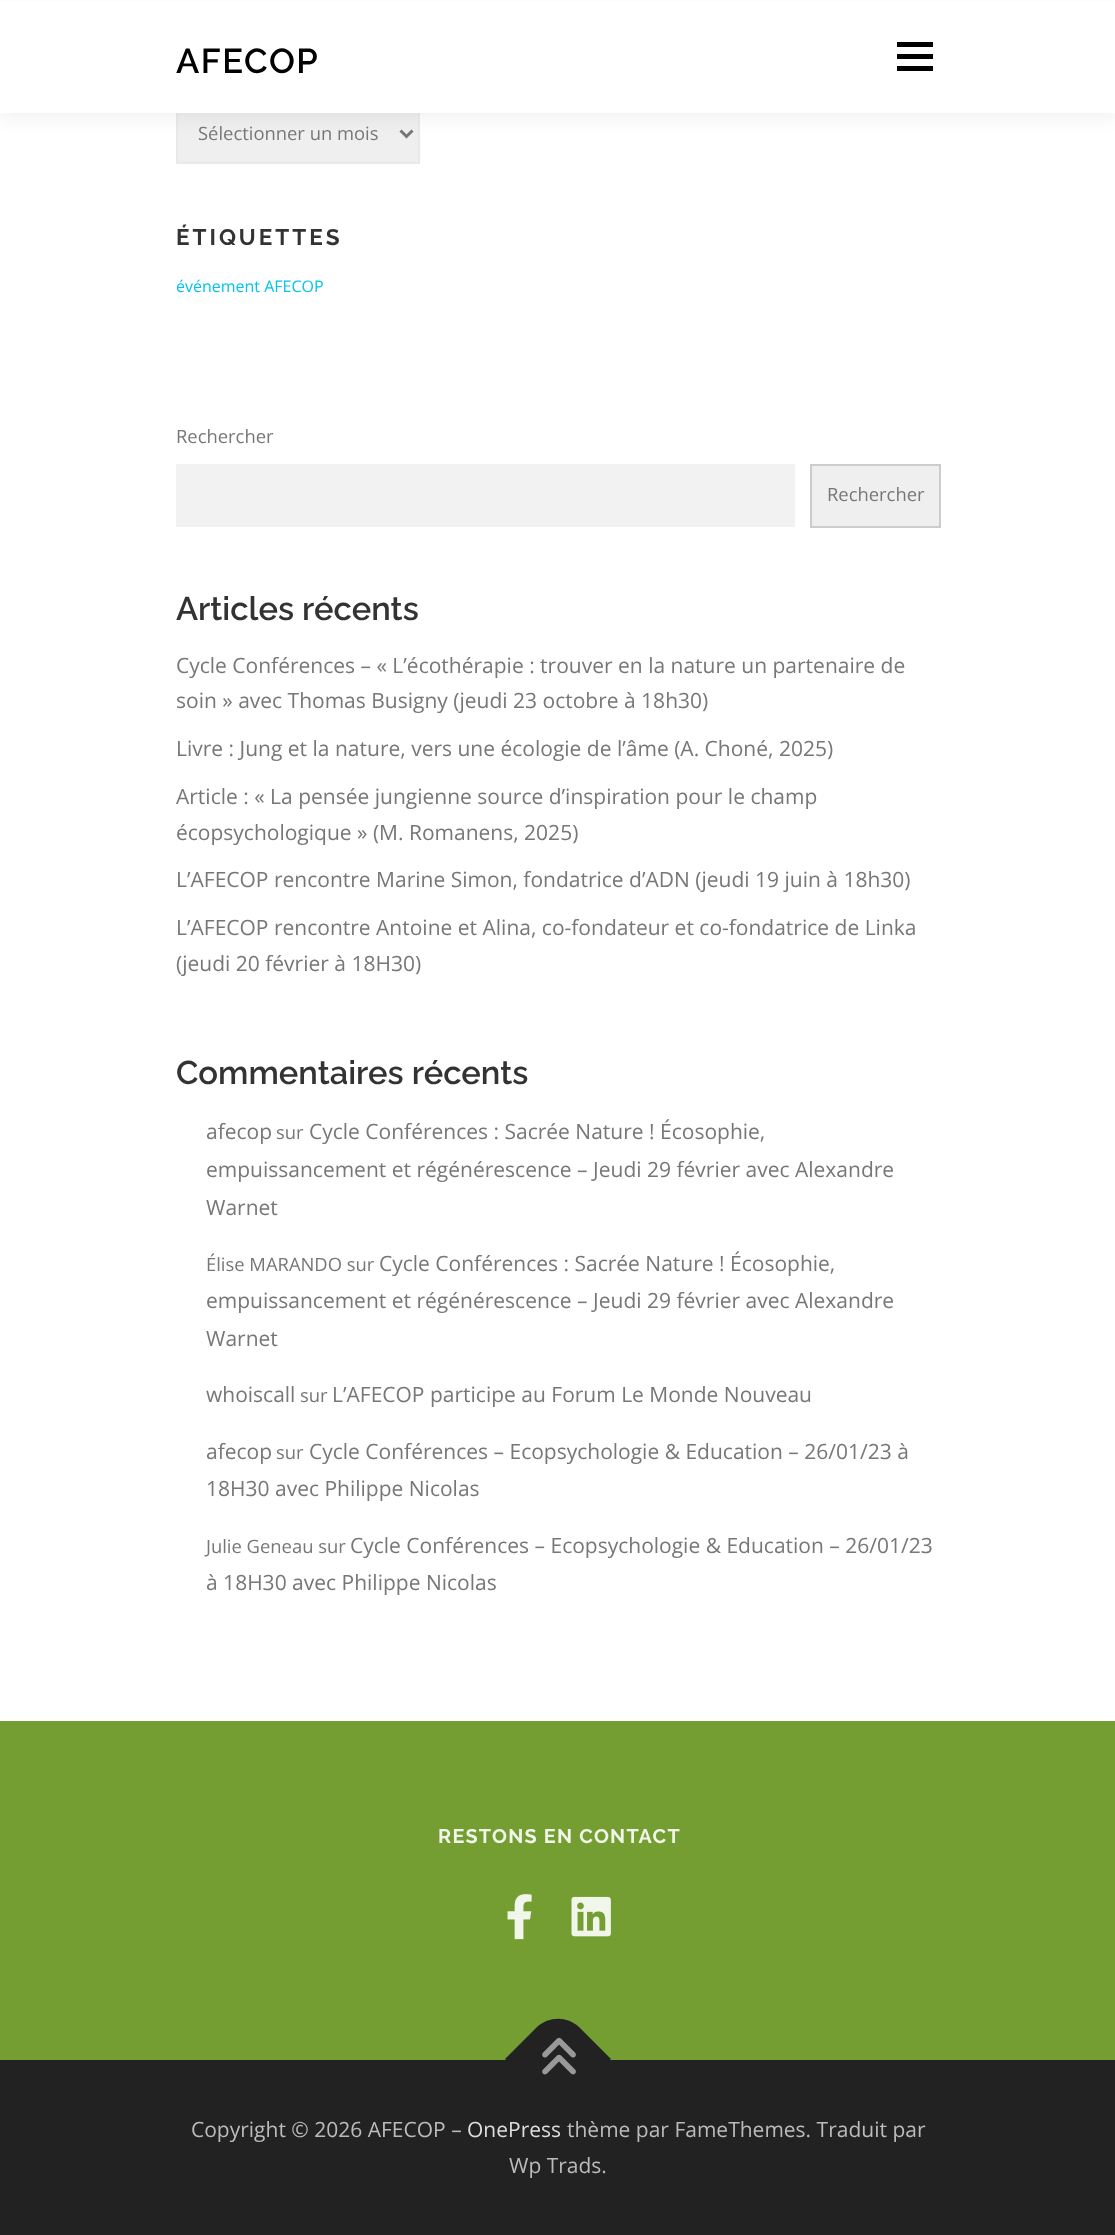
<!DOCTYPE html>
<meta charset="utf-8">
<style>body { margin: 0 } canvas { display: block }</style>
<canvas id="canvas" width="1115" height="2235"></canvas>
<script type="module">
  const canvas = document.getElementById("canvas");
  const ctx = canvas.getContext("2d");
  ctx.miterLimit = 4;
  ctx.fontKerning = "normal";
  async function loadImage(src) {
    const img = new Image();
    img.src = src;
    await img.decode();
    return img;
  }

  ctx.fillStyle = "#ffffff";
  ctx.fillRect(0, 0, 1115, 2235);
  ctx.fillStyle = "#efefef";
  ctx.fillRect(178, 113, 240, 49);
  ctx.strokeStyle = "#e9e9e9";
  ctx.lineWidth = 2;
  ctx.strokeRect(177, 103, 242, 60);
  ctx.beginPath();
  ctx.moveTo(400.5, 130.5);
  ctx.lineTo(406.5, 136.5);
  ctx.lineTo(412.5, 130.5);
  ctx.strokeStyle = "#777777";
  ctx.lineWidth = 3;
  ctx.stroke();
  ctx.fillStyle = "rgba(50, 50, 50, 0.06)";
  ctx.filter = "blur(7.5px)";
  ctx.beginPath();
  ctx.rect(0, 8, 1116, 112);
  ctx.fill();
  ctx.filter = "none";
  ctx.fillStyle = "#ffffff";
  ctx.fillRect(0, 2, 1115, 111);
  ctx.letterSpacing = "1.5px";
  ctx.font = "600 34.5px Raleway";
  ctx.fillStyle = "#000000";
  ctx.fillText("AFECOP", 176, 73);
  ctx.fillRect(897, 54, 36, 5);
  ctx.fillRect(897, 42, 36, 5);
  ctx.fillRect(897, 66, 36, 5);
  ctx.letterSpacing = "0px";
  ctx.font = "18.4px Open Sans";
  ctx.fillStyle = "#777777";
  ctx.fillText("Sélectionner un mois", 198, 140);
  ctx.letterSpacing = "3px";
  ctx.font = "bold 22.5px Raleway";
  ctx.fillStyle = "#333333";
  ctx.fillText("ÉTIQUETTES", 176, 245);
  ctx.letterSpacing = "0px";
  ctx.font = "16px Open Sans";
  ctx.fillStyle = "#03c4eb";
  ctx.fillText("événement AFECOP", 176, 292);
  ctx.font = "18.4px Open Sans";
  ctx.fillStyle = "#777777";
  ctx.fillText("Rechercher", 176, 443);
  ctx.fillStyle = "#f2f2f2";
  ctx.fillRect(176, 464, 619, 63);
  ctx.fillStyle = "#efefef";
  ctx.beginPath();
  ctx.rect(811, 465, 129, 62);
  ctx.fill();
  ctx.strokeStyle = "#cccccc";
  ctx.lineWidth = 2;
  ctx.stroke();
  ctx.fillStyle = "#777777";
  ctx.fillText("Rechercher", 827, 501);
  ctx.font = "600 32.75px Raleway";
  ctx.fillStyle = "#333333";
  ctx.fillText("Articles récents", 176, 620);
  ctx.font = "21px Open Sans";
  ctx.fillStyle = "#777777";
  ctx.fillText("Cycle Conférences – « L’écothérapie : trouver en la nature un partenaire de", 176, 673);
  ctx.fillText("soin » avec Thomas Busigny (jeudi 23 octobre à 18h30)", 176, 708);
  ctx.fillText("Livre : Jung et la nature, vers une écologie de l’âme (A. Choné, 2025)", 176, 756);
  ctx.fillText("Article : « La pensée jungienne source d’inspiration pour le champ", 176, 804);
  ctx.fillText("écopsychologique » (M. Romanens, 2025)", 176, 840);
  ctx.fillText("L’AFECOP rencontre Marine Simon, fondatrice d’ADN (jeudi 19 juin à 18h30)", 176, 887);
  ctx.fillText("L’AFECOP rencontre Antoine et Alina, co-fondateur et co-fondatrice de Linka", 176, 935);
  ctx.fillText("(jeudi 20 février à 18H30)", 176, 971);
  ctx.font = "600 32.75px Raleway";
  ctx.fillStyle = "#333333";
  ctx.fillText("Commentaires récents", 176, 1084);
  ctx.font = "21px Open Sans";
  ctx.fillStyle = "#777777";
  ctx.fillText("afecop", 206, 1139);
  ctx.font = "18.4px Open Sans";
  ctx.fillText("sur", 276, 1139);
  ctx.font = "21px Open Sans";
  ctx.fillText("Cycle Conférences : Sacrée Nature ! Écosophie,", 309, 1139);
  ctx.fillText("empuissancement et régénérescence – Jeudi 29 février avec Alexandre", 206, 1177);
  ctx.fillText("Warnet", 206, 1215);
  ctx.font = "18.4px Open Sans";
  ctx.fillText("Élise MARANDO sur", 206, 1271);
  ctx.font = "21px Open Sans";
  ctx.fillText("Cycle Conférences : Sacrée Nature ! Écosophie,", 379, 1271);
  ctx.fillText("empuissancement et régénérescence – Jeudi 29 février avec Alexandre", 206, 1308);
  ctx.fillText("Warnet", 206, 1346);
  ctx.fillText("whoiscall", 206, 1402);
  ctx.font = "18.4px Open Sans";
  ctx.fillText("sur", 300, 1402);
  ctx.font = "21px Open Sans";
  ctx.fillText("L’AFECOP participe au Forum Le Monde Nouveau", 332, 1402);
  ctx.fillText("afecop", 206, 1459);
  ctx.font = "18.4px Open Sans";
  ctx.fillText("sur", 276, 1459);
  ctx.font = "21px Open Sans";
  ctx.fillText("Cycle Conférences – Ecopsychologie & Education – 26/01/23 à", 309, 1459);
  ctx.fillText("18H30 avec Philippe Nicolas", 206, 1496);
  ctx.font = "18.4px Open Sans";
  ctx.fillText("Julie Geneau sur", 206, 1553);
  ctx.font = "21px Open Sans";
  ctx.fillText("Cycle Conférences – Ecopsychologie & Education – 26/01/23", 350, 1553);
  ctx.fillText("à 18H30 avec Philippe Nicolas", 206, 1590);
  ctx.fillStyle = "#749e31";
  ctx.fillRect(0, 1721, 1115, 339);
  ctx.letterSpacing = "1.25px";
  ctx.font = "bold 19.75px Raleway";
  ctx.fillStyle = "#f1f5ea";
  ctx.fillText("RESTONS EN CONTACT", 438, 1843);
  ctx.drawImage(await loadImage("img1.png"), 507, 1894, 25, 46);
  ctx.drawImage(await loadImage("img2.png"), 571, 1896, 40, 41);
  ctx.fillStyle = "#222222";
  ctx.fillRect(0, 2060, 1115, 175);
  ctx.beginPath();
  ctx.moveTo(505, 2059);
  ctx.lineTo(537, 2027);
  ctx.bezierCurveTo(549, 2016, 567, 2016, 579, 2027);
  ctx.lineTo(611, 2059);
  ctx.lineTo(558, 2112);
  ctx.closePath();
  ctx.fill();
  ctx.drawImage(await loadImage("img3.png"), 542, 2037, 34, 38);
  ctx.letterSpacing = "0px";
  ctx.font = "21px Open Sans";
  ctx.fillStyle = "#bbbbbb";
  ctx.fillText("Copyright © 2026 AFECOP –", 191, 2137);
  ctx.fillStyle = "#dddddd";
  ctx.fillText("OnePress", 467, 2137);
  ctx.fillStyle = "#bbbbbb";
  ctx.fillText("thème par FameThemes. Traduit par", 567, 2137);
  ctx.fillText("Wp Trads.", 509, 2173);
</script>
